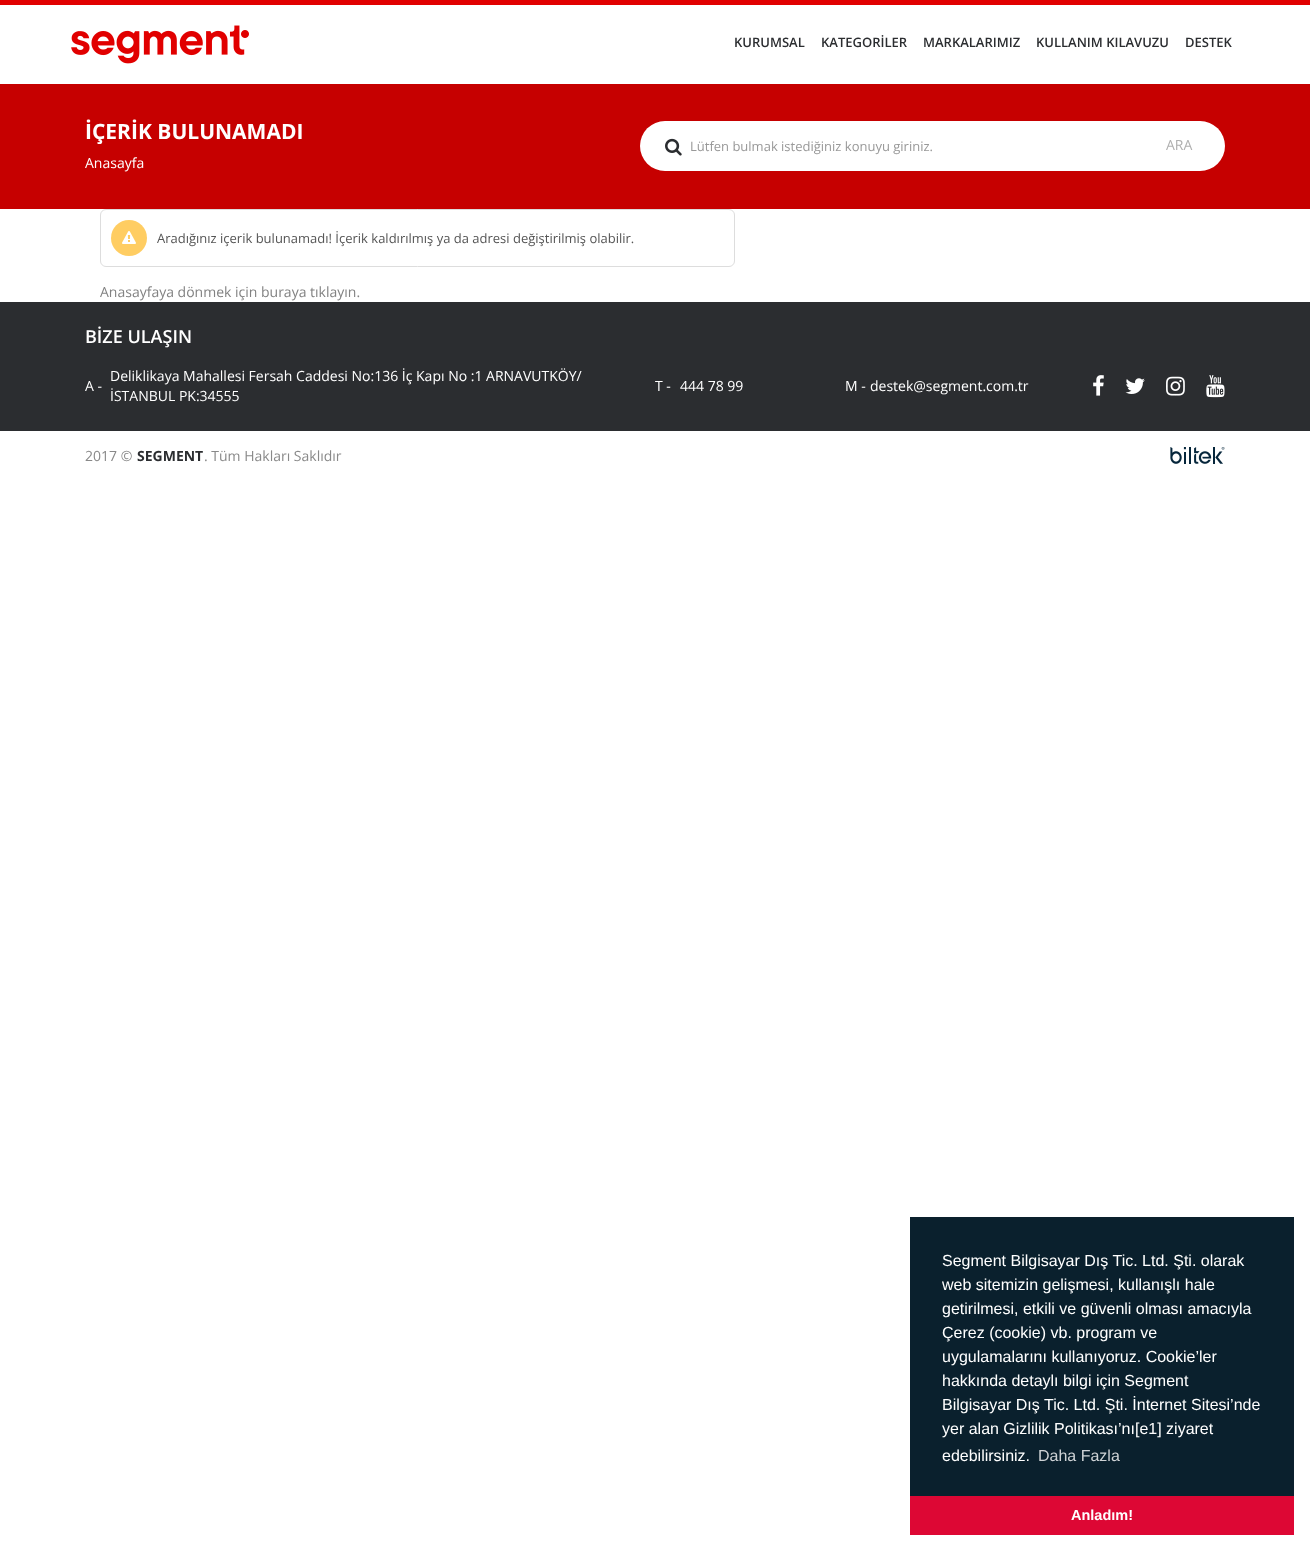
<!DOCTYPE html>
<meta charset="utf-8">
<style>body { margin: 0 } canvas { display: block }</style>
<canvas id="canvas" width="1310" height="1551"></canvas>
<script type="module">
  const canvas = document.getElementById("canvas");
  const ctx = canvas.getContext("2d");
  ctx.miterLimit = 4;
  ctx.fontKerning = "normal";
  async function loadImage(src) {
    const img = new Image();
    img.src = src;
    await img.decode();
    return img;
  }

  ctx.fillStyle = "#ffffff";
  ctx.fillRect(0, 0, 1310, 1551);
  ctx.fillStyle = "#e10000";
  ctx.fillRect(0, 0, 1310, 5);
  ctx.drawImage(await loadImage("img1.png"), 71, 25, 178, 39);
  ctx.font = "600 13px Open Sans";
  ctx.fillStyle = "#2b2d30";
  ctx.fillText("KURUMSAL", 734, 47);
  ctx.fillText("KATEGORİLER", 821, 47);
  ctx.fillText("MARKALARIMIZ", 923, 47);
  ctx.fillText("KULLANIM KILAVUZU", 1036, 47);
  ctx.fillText("DESTEK", 1185, 47);
  ctx.fillStyle = "#c60000";
  ctx.fillRect(0, 84, 1310, 125);
  ctx.font = "bold 21px Open Sans";
  ctx.fillStyle = "#ffffff";
  ctx.fillText("İÇERİK BULUNAMADI", 85, 139);
  ctx.font = "14px Open Sans";
  ctx.fillText("Anasayfa", 85, 168);
  ctx.beginPath();
  ctx.roundRect(640, 121, 585, 50, 25);
  ctx.fill();
  ctx.drawImage(await loadImage("img2.png"), 665, 138, 17, 18);
  ctx.font = "13px Open Sans";
  ctx.fillStyle = "#999999";
  ctx.fillText("Lütfen bulmak istediğiniz konuyu giriniz.", 690, 151);
  ctx.font = "14px Open Sans";
  ctx.fillStyle = "#afafaf";
  ctx.fillText("ARA", 1166, 150);
  ctx.beginPath();
  ctx.roundRect(100.5, 209.5, 634, 57, 5.5);
  ctx.strokeStyle = "#dddddd";
  ctx.stroke();
  ctx.fillStyle = "#ffcd62";
  ctx.beginPath();
  ctx.arc(129, 238, 18, 0, Math.PI * 2);
  ctx.fill();
  ctx.drawImage(await loadImage("img3.png"), 122, 231, 14, 13);
  ctx.font = "13px Open Sans";
  ctx.fillStyle = "#555555";
  ctx.fillText("Aradığınız içerik bulunamadı! İçerik kaldırılmış ya da adresi değiştirilmiş olabilir.", 157, 243);
  ctx.font = "14px Open Sans";
  ctx.fillStyle = "#828282";
  ctx.fillText("Anasayfaya dönmek için buraya tıklayın.", 100, 297);
  ctx.fillStyle = "#2b2d30";
  ctx.fillRect(0, 302, 1310, 129);
  ctx.font = "600 18px Open Sans";
  ctx.fillStyle = "#ffffff";
  ctx.fillText("BİZE ULAŞIN", 85, 343);
  ctx.font = "14px Open Sans";
  ctx.fillText("A -", 85, 391);
  ctx.fillText("Deliklikaya Mahallesi Fersah Caddesi No:136 İç Kapı No :1 ARNAVUTKÖY/", 110, 381);
  ctx.fillText("İSTANBUL PK:34555", 110, 401);
  ctx.fillText("T -", 655, 391);
  ctx.fillText("444 78 99", 680, 391);
  ctx.fillText("M -", 845, 391);
  ctx.fillText("destek@segment.com.tr", 870, 391);
  ctx.drawImage(await loadImage("img4.png"), 1093, 375, 11, 21);
  ctx.drawImage(await loadImage("img5.png"), 1125, 378, 20, 16);
  ctx.drawImage(await loadImage("img6.png"), 1166, 376, 19, 20);
  ctx.drawImage(await loadImage("img7.png"), 1206, 375, 19, 23);
  ctx.fillStyle = "#898989";
  ctx.fillText("2017 ©", 85, 461);
  ctx.font = "bold 14px Open Sans";
  ctx.fillStyle = "#2b2d30";
  ctx.fillText("SEGMENT", 137, 461);
  ctx.font = "14px Open Sans";
  ctx.fillStyle = "#898989";
  ctx.fillText(". Tüm Hakları Saklıdır", 204, 461);
  ctx.drawImage(await loadImage("img8.png"), 1170, 447, 55, 17);
  ctx.fillStyle = "#0a202d";
  ctx.fillRect(910, 1217, 384, 279);
  ctx.font = "16px Liberation Sans";
  ctx.fillStyle = "#ffffff";
  ctx.fillText("Segment Bilgisayar Dış Tic. Ltd. Şti. olarak", 942, 1266);
  ctx.fillText("web sitemizin gelişmesi, kullanışlı hale", 942, 1290);
  ctx.fillText("getirilmesi, etkili ve güvenli olması amacıyla", 942, 1314);
  ctx.fillText("Çerez (cookie) vb. program ve", 942, 1338);
  ctx.fillText("uygulamalarını kullanıyoruz. Cookie’ler", 942, 1362);
  ctx.fillText("hakkında detaylı bilgi için Segment", 942, 1386);
  ctx.fillText("Bilgisayar Dış Tic. Ltd. Şti. İnternet Sitesi’nde", 942, 1410);
  ctx.fillText("yer alan Gizlilik Politikası’nı[e1] ziyaret", 942, 1434);
  ctx.fillText("edebilirsiniz.", 942, 1461);
  ctx.fillStyle = "#ced2d5";
  ctx.fillText("Daha Fazla", 1038, 1461);
  ctx.fillStyle = "#dd0734";
  ctx.fillRect(910, 1496, 384, 39);
  ctx.font = "bold 14.5px Liberation Sans";
  ctx.fillStyle = "#ffffff";
  ctx.fillText("Anladım!", 1071, 1520);
</script>
